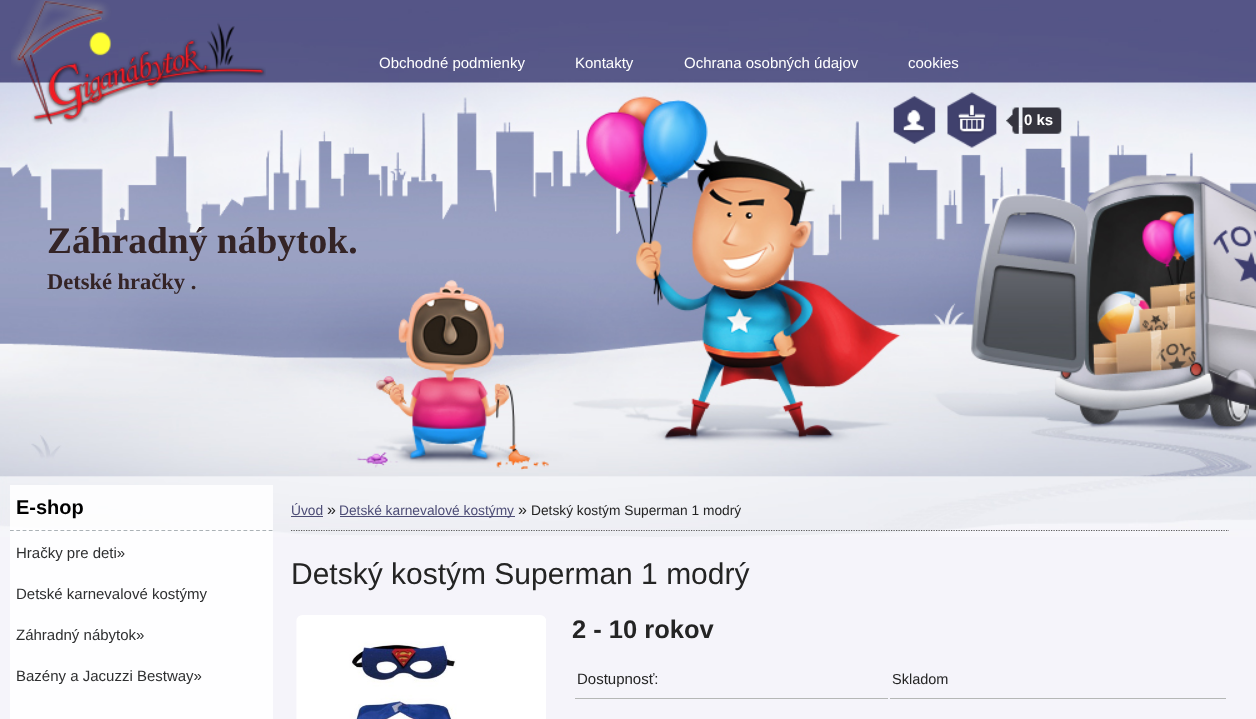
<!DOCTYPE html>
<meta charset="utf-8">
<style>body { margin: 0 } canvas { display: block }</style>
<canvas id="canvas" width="1256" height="719"></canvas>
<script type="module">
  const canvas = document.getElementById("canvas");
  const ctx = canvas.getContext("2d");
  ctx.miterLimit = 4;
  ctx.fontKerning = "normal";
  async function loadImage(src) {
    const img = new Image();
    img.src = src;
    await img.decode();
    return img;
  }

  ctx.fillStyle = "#f5f4fa";
  ctx.fillRect(0, 0, 1256, 719);
  ctx.drawImage(await loadImage("img1.png"), 0, 0, 1256, 537);
  ctx.drawImage(await loadImage("img2.png"), 9, 96, 1245, 380);
  ctx.font = "15px Liberation Sans";
  ctx.fillStyle = "#ffffff";
  ctx.fillText("Obchodné podmienky", 379, 68);
  ctx.fillText("Kontakty", 575, 68);
  ctx.fillText("Ochrana osobných údajov", 684, 68);
  ctx.fillText("cookies", 908, 68);
  ctx.drawImage(await loadImage("img3.png"), 893, 96, 43, 48);
  ctx.drawImage(await loadImage("img4.png"), 947, 92, 50, 56);
  ctx.drawImage(await loadImage("img5.png"), 1006, 107, 13, 27);
  ctx.fillRect(1019, 126, 4, 1);
  ctx.drawImage(await loadImage("img6.png"), 1022, 107, 40, 27);
  ctx.font = "bold 15px Liberation Sans";
  ctx.fillText("0 ks", 1024, 125);
  ctx.drawImage(await loadImage("img7.png"), 11, 0, 255, 125);
  ctx.font = "bold 37.5px Liberation Serif";
  ctx.fillStyle = "#342426";
  ctx.fillText("Záhradný nábytok.", 47, 253);
  ctx.font = "bold 22.5px Liberation Serif";
  ctx.fillText("Detské hračky .", 47, 289);
  ctx.fillStyle = "rgba(255, 255, 255, 0.86)";
  ctx.fillRect(10, 485, 263, 234);
  ctx.beginPath();
  ctx.moveTo(10, 530.5);
  ctx.lineTo(272.5, 530.5);
  ctx.strokeStyle = "#abb2b6";
  ctx.lineWidth = 1.2;
  ctx.setLineDash([3.75, 2.56]);
  ctx.stroke();
  ctx.font = "bold 20px Liberation Sans";
  ctx.fillStyle = "#000000";
  ctx.fillText("E-shop", 16, 514);
  ctx.font = "15px Liberation Sans";
  ctx.fillStyle = "#2e2f30";
  ctx.fillText("Hračky pre deti»", 16, 558);
  ctx.fillText("Detské karnevalové kostýmy", 16, 599);
  ctx.fillText("Záhradný nábytok»", 16, 640);
  ctx.fillText("Bazény a Jacuzzi Bestway»", 16, 681);
  ctx.beginPath();
  ctx.moveTo(291, 530.5);
  ctx.lineTo(1229, 530.5);
  ctx.strokeStyle = "#5c5c5c";
  ctx.setLineDash([1.25, 1.25]);
  ctx.stroke();
  ctx.font = "13.75px Liberation Sans";
  ctx.fillStyle = "#4d4d76";
  ctx.fillText("Úvod", 291, 515);
  ctx.fillRect(291, 516, 32, 1);
  ctx.font = "16px Liberation Sans";
  ctx.fillStyle = "#242424";
  ctx.fillText("»", 327, 515);
  ctx.fillStyle = "#4d4d76";
  ctx.fillRect(340, 516, 175, 1);
  ctx.font = "13.75px Liberation Sans";
  ctx.fillText("Detské karnevalové kostýmy", 339, 515);
  ctx.font = "16px Liberation Sans";
  ctx.fillStyle = "#242424";
  ctx.fillText("»", 518, 515);
  ctx.font = "13.75px Liberation Sans";
  ctx.fillText("Detský kostým Superman 1 modrý", 531, 515);
  ctx.font = "30px Liberation Sans";
  ctx.fillText("Detský kostým Superman 1 modrý", 291, 584);
  ctx.drawImage(await loadImage("img8.png"), 296, 615, 250, 104);
  ctx.font = "bold 25.5px Liberation Sans";
  ctx.fillText("2 - 10 rokov", 572, 638);
  ctx.fillStyle = "#b5b7b6";
  ctx.fillRect(575, 698, 313, 1);
  ctx.font = "15px Liberation Sans";
  ctx.fillStyle = "#242424";
  ctx.fillText("Dostupnosť:", 577, 684);
  ctx.fillStyle = "#b5b7b6";
  ctx.fillRect(890, 698, 336, 1);
  ctx.font = "14.5px Liberation Sans";
  ctx.fillStyle = "#242424";
  ctx.fillText("Skladom", 892, 684);
</script>
